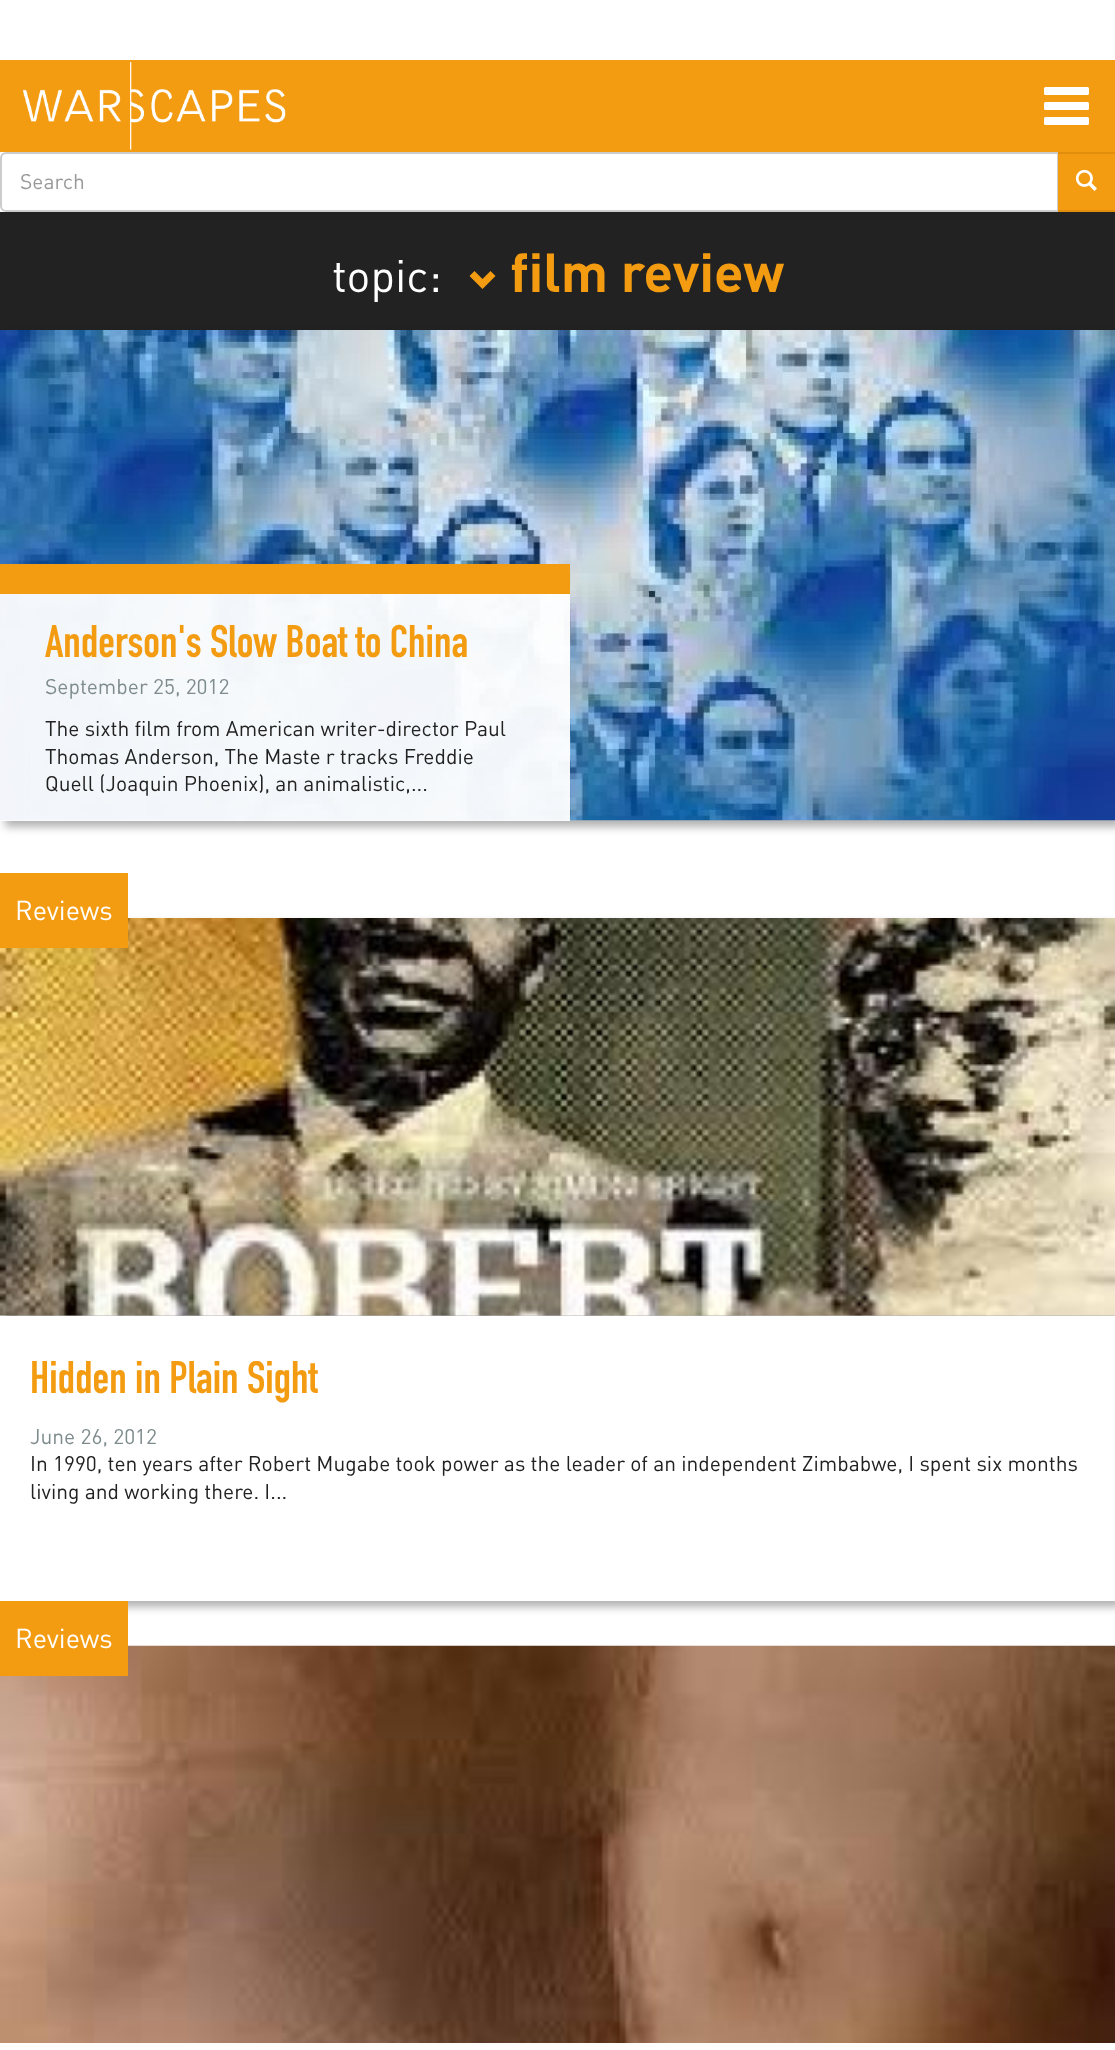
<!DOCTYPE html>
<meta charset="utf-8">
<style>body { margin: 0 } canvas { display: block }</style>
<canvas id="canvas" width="1115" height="2050"></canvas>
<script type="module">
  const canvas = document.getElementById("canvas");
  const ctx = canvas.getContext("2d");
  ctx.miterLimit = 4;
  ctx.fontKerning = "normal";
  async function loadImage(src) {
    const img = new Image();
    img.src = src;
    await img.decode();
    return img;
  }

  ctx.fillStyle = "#ffffff";
  ctx.fillRect(0, 0, 1115, 2050);
  ctx.fillStyle = "#f39c12";
  ctx.fillRect(0, 60, 1115, 92);
  ctx.drawImage(await loadImage("img1.png"), 23, 62, 263, 88);
  ctx.fillStyle = "#ffffff";
  ctx.beginPath();
  ctx.roundRect(1044, 87, 45, 8, 1.5);
  ctx.fill();
  ctx.beginPath();
  ctx.roundRect(1044, 102, 45, 8, 1.5);
  ctx.fill();
  ctx.beginPath();
  ctx.roundRect(1044, 117, 45, 8, 1.5);
  ctx.fill();
  ctx.fillStyle = "#ececec";
  ctx.beginPath();
  ctx.moveTo(6, 154);
  ctx.lineTo(1058, 154);
  ctx.lineTo(1058, 153);
  ctx.lineTo(7, 153);
  ctx.bezierCurveTo(4, 153, 2, 156, 2, 159);
  ctx.bezierCurveTo(2, 157, 4, 154, 6, 154);
  ctx.closePath();
  ctx.fill();
  ctx.beginPath();
  ctx.roundRect(1, 153, 1057, 58, [5, 0, 0, 5]);
  ctx.strokeStyle = "#cccccc";
  ctx.lineWidth = 2;
  ctx.stroke();
  ctx.font = "21px DIN";
  ctx.fillStyle = "#999999";
  ctx.fillText("Search", 20, 189);
  ctx.fillStyle = "#f39c12";
  ctx.fillRect(1058, 154, 57, 56);
  ctx.fillStyle = "#e08e0b";
  ctx.fillRect(1058, 152, 57, 2);
  ctx.fillRect(1058, 210, 57, 2);
  ctx.drawImage(await loadImage("img2.png"), 1075, 169, 22, 22);
  ctx.fillStyle = "#222222";
  ctx.fillRect(0, 212, 1115, 118);
  ctx.font = "45px DIN";
  ctx.fillStyle = "#ffffff";
  ctx.fillText("topic:", 332, 292);
  ctx.fillStyle = "#f39c12";
  ctx.beginPath();
  ctx.moveTo(482.5, 289);
  ctx.lineTo(495.5, 276);
  ctx.lineTo(490.5, 271);
  ctx.lineTo(482.5, 279);
  ctx.lineTo(474.5, 271);
  ctx.lineTo(469.5, 276);
  ctx.closePath();
  ctx.fill();
  ctx.font = "bold 54px DIN";
  ctx.fillText("film review", 510, 292);
  ctx.fillStyle = "rgba(0, 0, 0, 0.3)";
  ctx.filter = "blur(4px)";
  ctx.beginPath();
  ctx.rect(5, 336, 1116, 491);
  ctx.fill();
  ctx.filter = "none";
  ctx.drawImage(await loadImage("img3.png"), 0, 330, 1115, 491);
  ctx.fillStyle = "rgba(255, 255, 255, 0.95)";
  ctx.fillRect(0, 594, 570, 227);
  ctx.fillStyle = "#f39c12";
  ctx.fillRect(0, 564, 570, 30);
  ctx.font = "45px 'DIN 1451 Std'";
  ctx.fillText("Anderson's Slow Boat to China", 45, 657);
  ctx.font = "21px DIN";
  ctx.fillStyle = "#7f8c8d";
  ctx.fillText("September 25, 2012", 45, 694);
  ctx.fillStyle = "#222222";
  ctx.fillText("The sixth film from American writer-director Paul", 45, 736);
  ctx.fillText("Thomas Anderson, The Maste r tracks Freddie", 45, 764);
  ctx.fillText("Quell (Joaquin Phoenix), an animalistic,...", 45, 791);
  ctx.fillStyle = "rgba(0, 0, 0, 0.3)";
  ctx.filter = "blur(4px)";
  ctx.beginPath();
  ctx.rect(5, 924, 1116, 683);
  ctx.fill();
  ctx.filter = "none";
  ctx.drawImage(await loadImage("img4.png"), 0, 918, 1115, 398);
  ctx.fillStyle = "#f39c12";
  ctx.fillRect(0, 873, 128, 75);
  ctx.font = "27px DIN";
  ctx.fillStyle = "#ffffff";
  ctx.fillText("Reviews", 15, 920);
  ctx.fillRect(0, 1316, 1115, 285);
  ctx.save();
  ctx.beginPath();
  ctx.rect(30, 1361, 450, 49);
  ctx.clip();
  ctx.font = "45px 'DIN 1451 Std'";
  ctx.fillStyle = "#f39c12";
  ctx.fillText("Hidden in Plain Sight", 30, 1393);
  ctx.restore();
  ctx.font = "21px DIN";
  ctx.fillStyle = "#7f8c8d";
  ctx.fillText("June 26, 2012", 30, 1444);
  ctx.fillStyle = "#222222";
  ctx.fillText("In 1990, ten years after Robert Mugabe took power as the leader of an independent Zimbabwe, I spent six months", 30, 1471);
  ctx.fillText("living and working there. I...", 30, 1499);
  ctx.drawImage(await loadImage("img5.png"), 0, 1645, 1115, 398);
  ctx.fillStyle = "#f39c12";
  ctx.fillRect(0, 1601, 128, 75);
  ctx.font = "27px DIN";
  ctx.fillStyle = "#ffffff";
  ctx.fillText("Reviews", 15, 1648);
</script>
